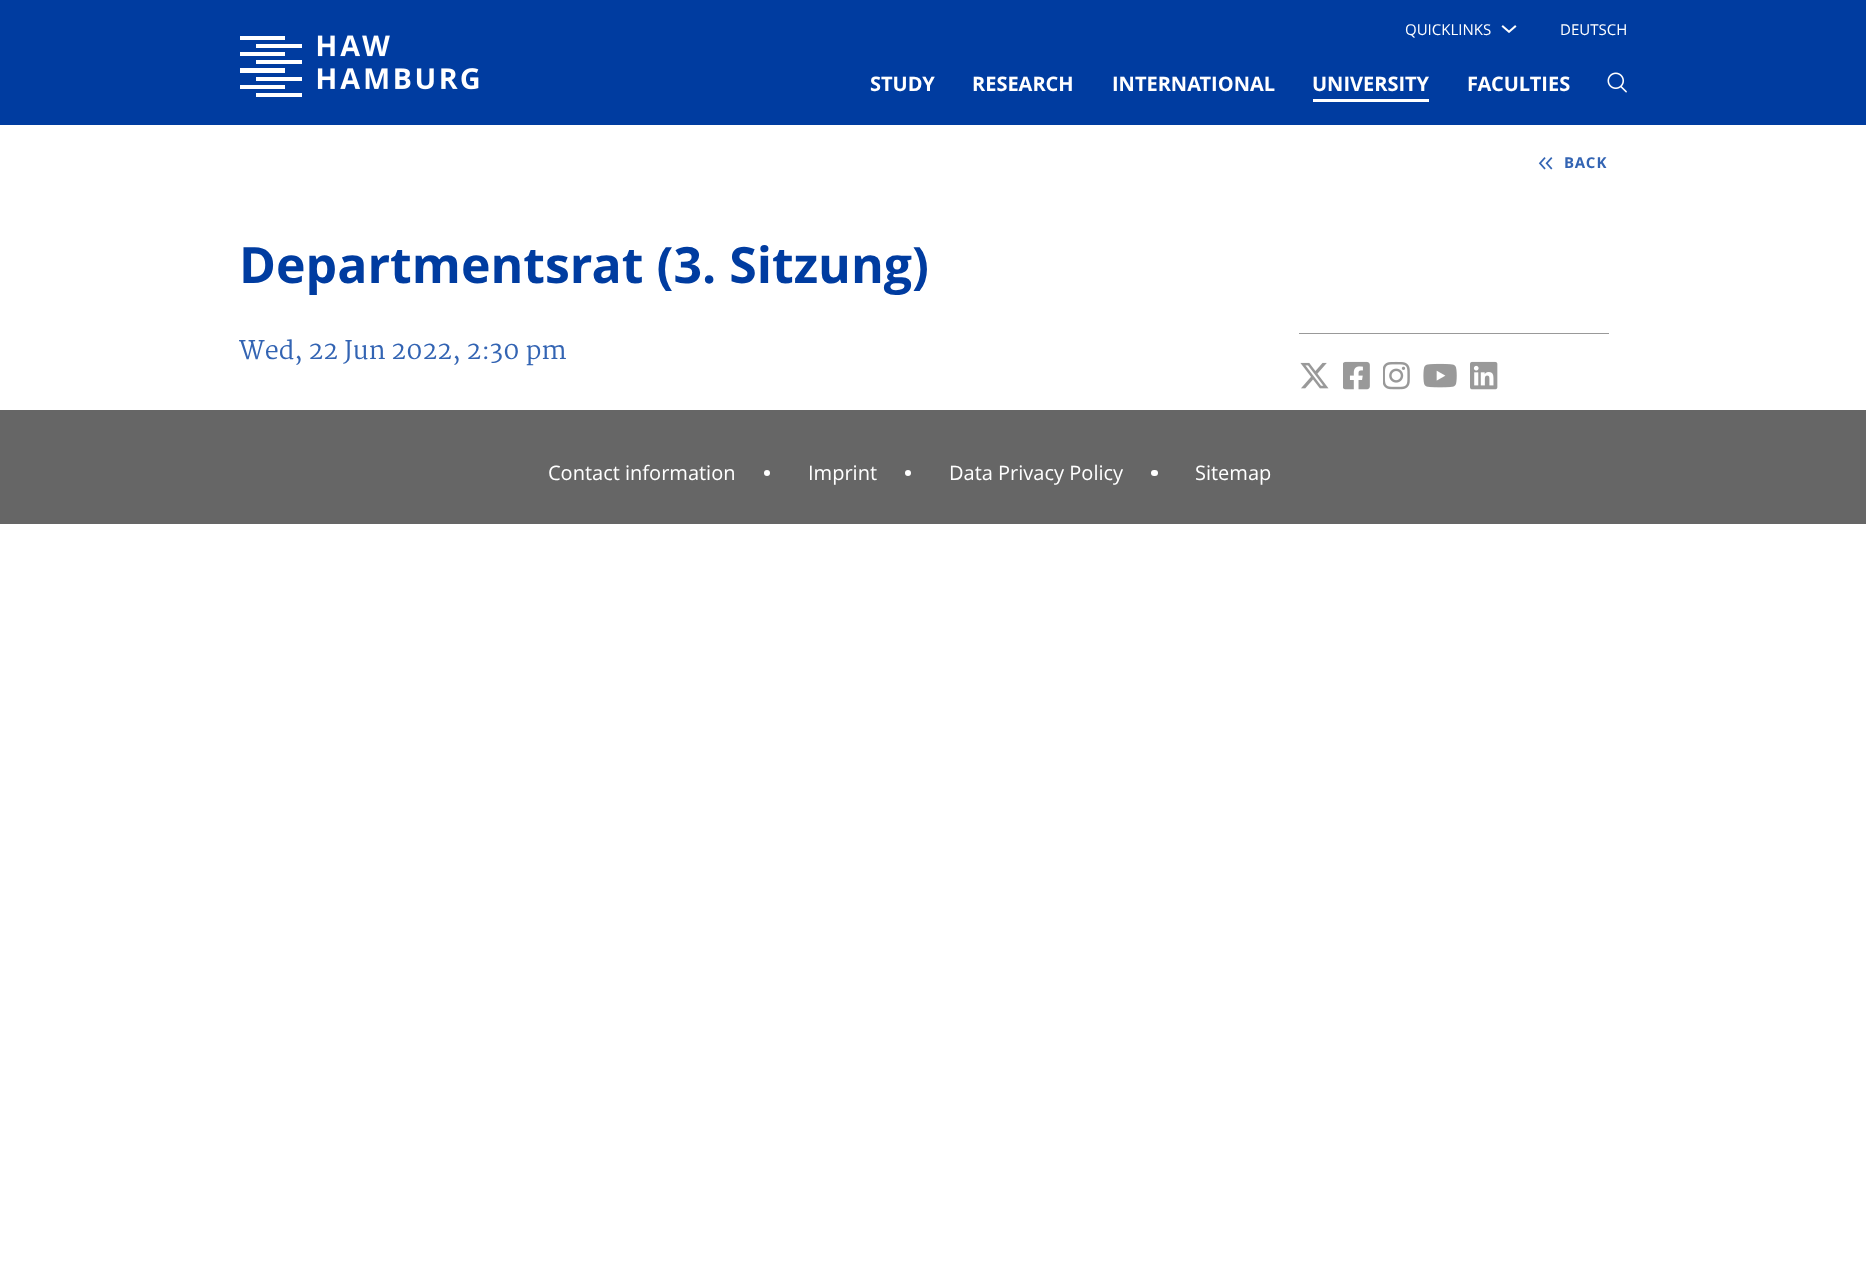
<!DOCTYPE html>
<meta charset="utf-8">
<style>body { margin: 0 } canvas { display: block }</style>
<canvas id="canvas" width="1866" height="1285"></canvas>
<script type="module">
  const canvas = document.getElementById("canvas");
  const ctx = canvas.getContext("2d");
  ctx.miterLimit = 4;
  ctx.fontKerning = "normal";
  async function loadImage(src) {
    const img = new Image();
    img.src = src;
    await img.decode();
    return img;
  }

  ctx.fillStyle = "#ffffff";
  ctx.fillRect(0, 0, 1866, 1285);
  ctx.fillStyle = "#003ca0";
  ctx.fillRect(0, 0, 1866, 125);
  ctx.drawImage(await loadImage("img1.png"), 240, 35, 239, 62);
  ctx.font = "15px Open Sans";
  ctx.fillStyle = "#ffffff";
  ctx.fillText("QUICKLINKS", 1405, 35);
  ctx.drawImage(await loadImage("img2.png"), 1501, 25, 16, 8);
  ctx.fillText("DEUTSCH", 1560, 35);
  ctx.font = "bold 20px Open Sans";
  ctx.fillText("STUDY", 870, 91);
  ctx.fillText("RESEARCH", 972, 91);
  ctx.fillText("INTERNATIONAL", 1112, 91);
  ctx.fillRect(1313, 99, 116, 3);
  ctx.fillText("UNIVERSITY", 1312, 91);
  ctx.fillText("FACULTIES", 1467, 91);
  ctx.drawImage(await loadImage("img3.png"), 1607, 72, 20, 21);
  ctx.drawImage(await loadImage("img4.png"), 1538, 157, 15, 13);
  ctx.letterSpacing = "1px";
  ctx.font = "bold 15px Open Sans";
  ctx.fillStyle = "#3364b3";
  ctx.fillText("BACK", 1564, 168);
  ctx.letterSpacing = "0px";
  ctx.font = "bold 50px Open Sans";
  ctx.fillStyle = "#003ca0";
  ctx.fillText("Departmentsrat (3. Sitzung)", 239, 283);
  ctx.font = "25px Martel";
  ctx.fillStyle = "#3364b3";
  ctx.fillText("Wed, 22 Jun 2022, 2:30 pm", 239, 359);
  ctx.fillStyle = "#999999";
  ctx.fillRect(1299, 333, 310, 1);
  ctx.drawImage(await loadImage("img5.png"), 1300, 362, 29, 27);
  ctx.drawImage(await loadImage("img6.png"), 1343, 361, 27, 29);
  ctx.drawImage(await loadImage("img7.png"), 1383, 361, 27, 29);
  ctx.drawImage(await loadImage("img8.png"), 1423, 363, 34, 25);
  ctx.drawImage(await loadImage("img9.png"), 1470, 361, 28, 29);
  ctx.fillStyle = "#666666";
  ctx.fillRect(0, 410, 1866, 114);
  ctx.font = "20px Open Sans";
  ctx.fillStyle = "#ffffff";
  ctx.fillText("Contact information", 548, 480);
  ctx.beginPath();
  ctx.arc(767, 473, 3, 0, Math.PI * 2);
  ctx.fill();
  ctx.fillText("Imprint", 808, 480);
  ctx.beginPath();
  ctx.arc(908, 473, 3, 0, Math.PI * 2);
  ctx.fill();
  ctx.fillText("Data Privacy Policy", 949, 480);
  ctx.beginPath();
  ctx.roundRect(1151, 470, 7, 6, 3);
  ctx.fill();
  ctx.fillText("Sitemap", 1195, 480);
</script>
